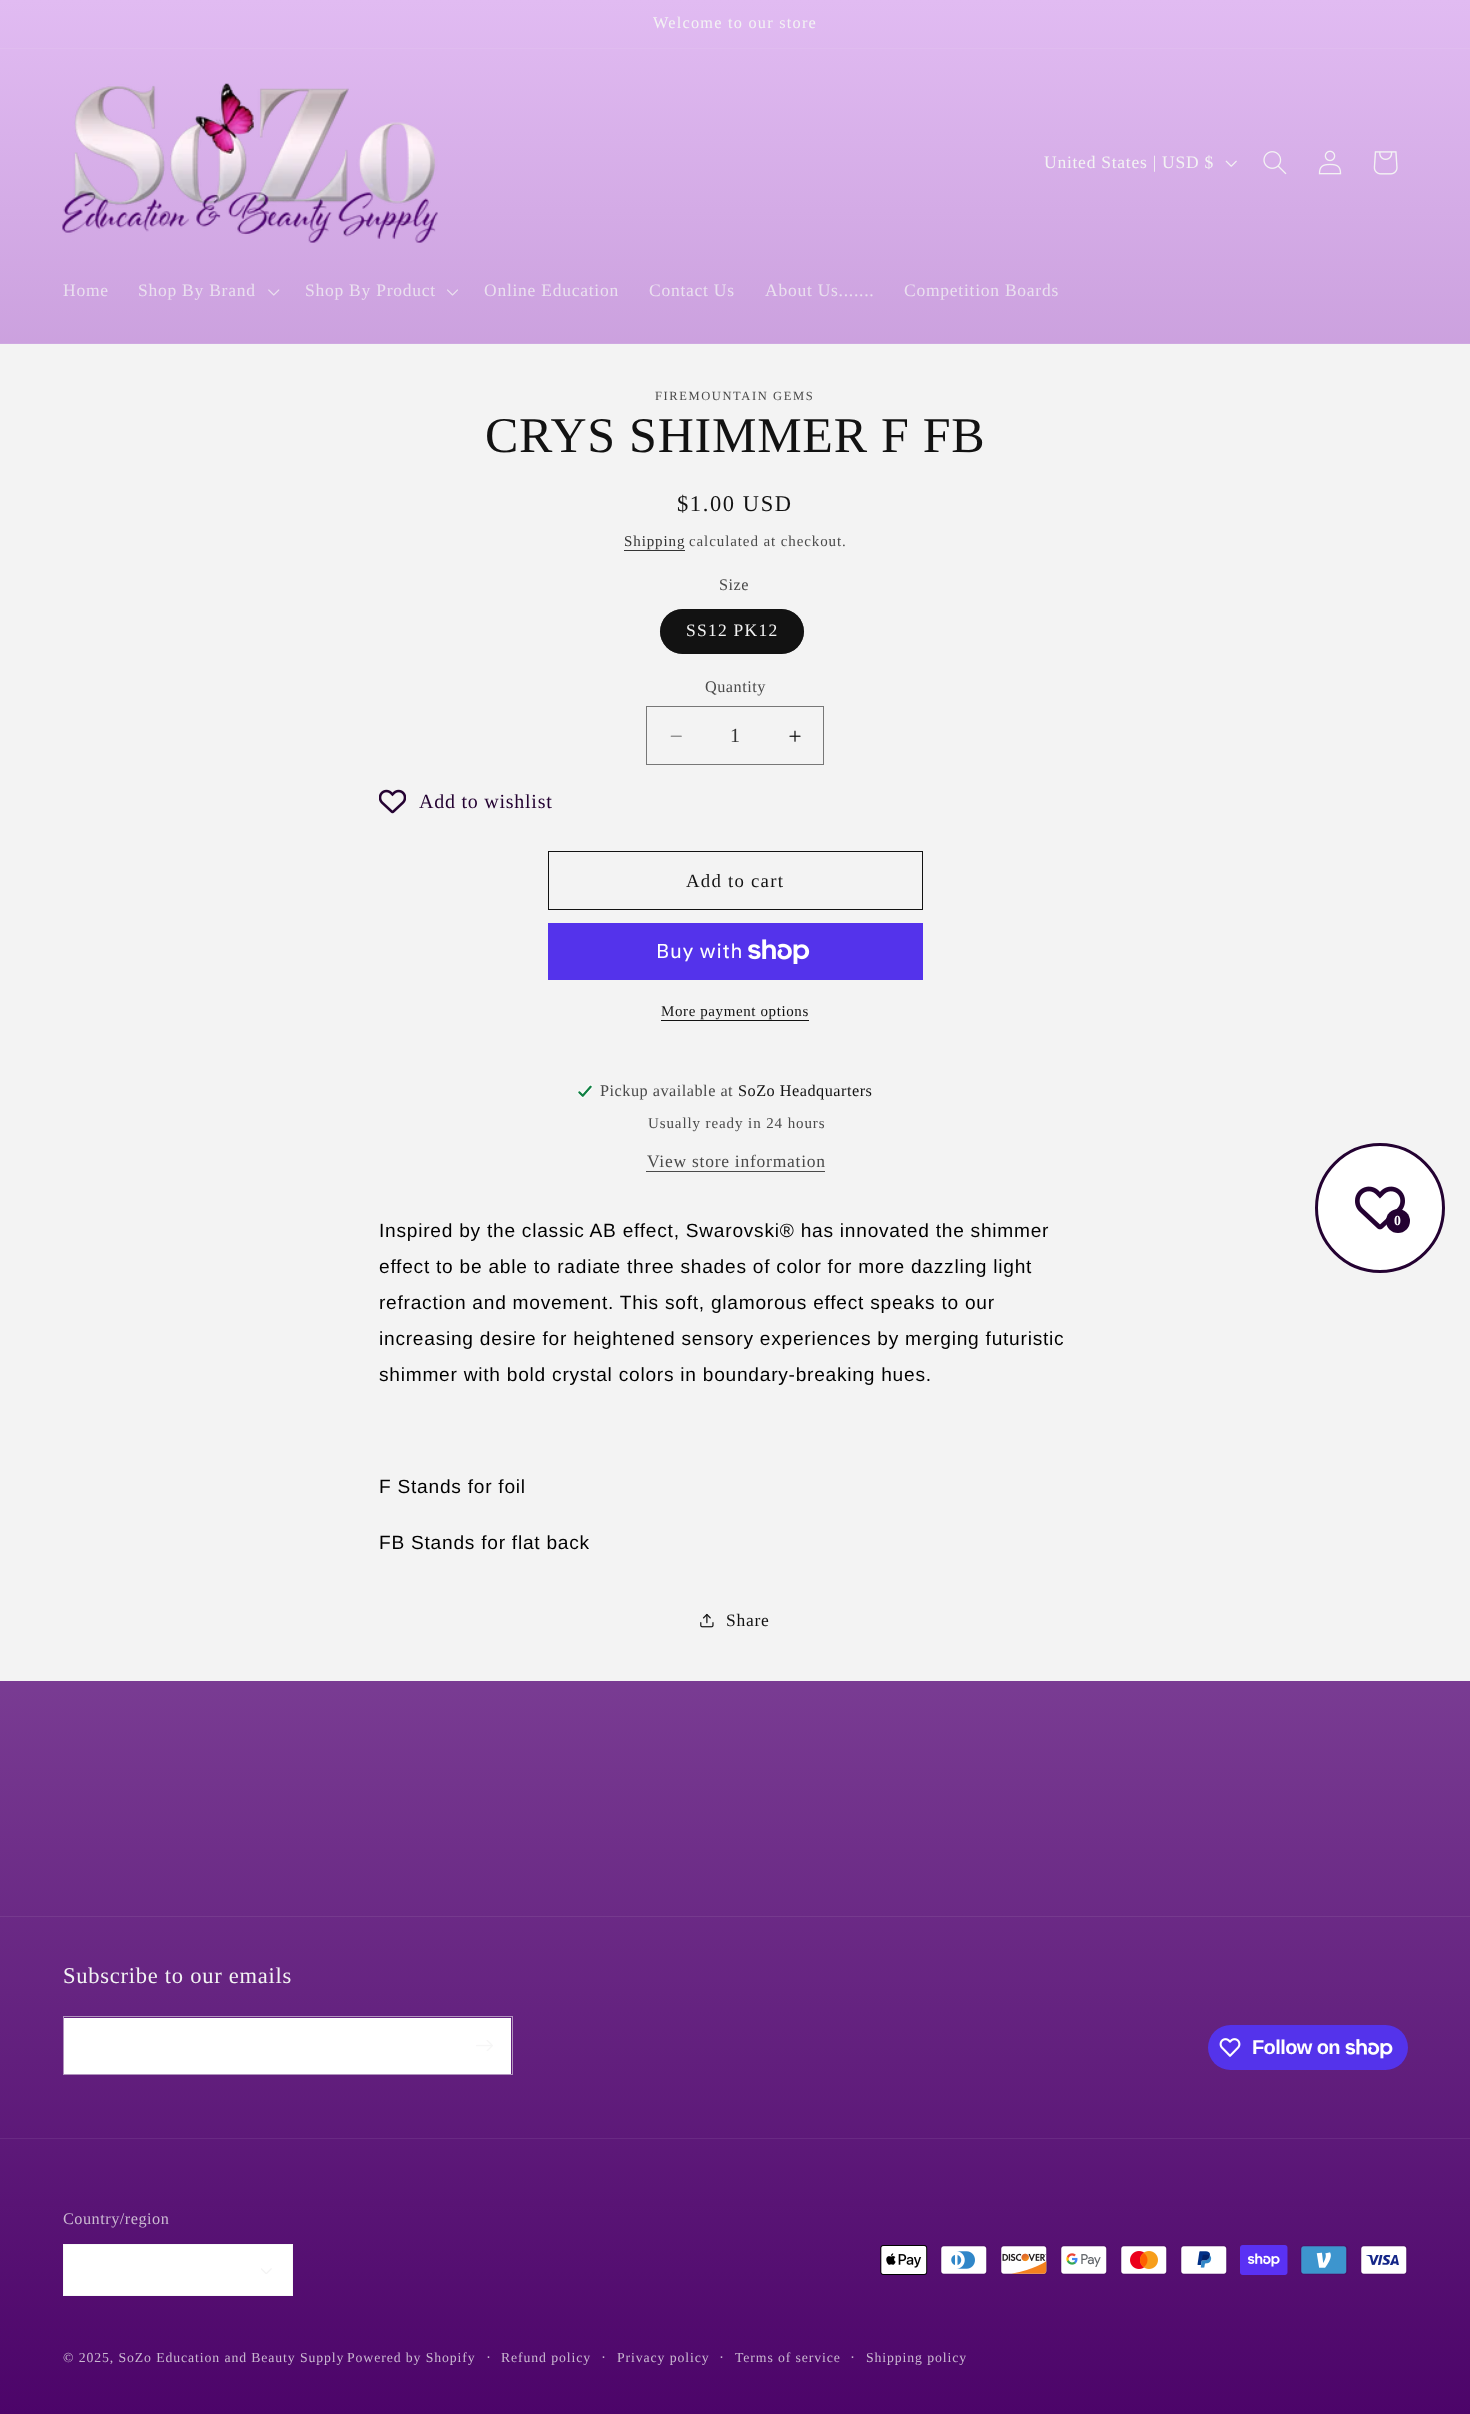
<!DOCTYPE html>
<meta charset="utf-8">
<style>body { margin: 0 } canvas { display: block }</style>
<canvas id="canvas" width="1470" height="2414"></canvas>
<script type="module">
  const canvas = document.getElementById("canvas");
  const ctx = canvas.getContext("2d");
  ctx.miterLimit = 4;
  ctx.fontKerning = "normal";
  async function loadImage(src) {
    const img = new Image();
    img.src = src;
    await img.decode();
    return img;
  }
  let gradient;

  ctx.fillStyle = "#ffffff";
  ctx.fillRect(0, 0, 1470, 2414);
  gradient = ctx.createLinearGradient(735, 0, 735, 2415);
  gradient.addColorStop(0, "#e1bbf2");
  gradient.addColorStop(1, "#4c0469");
  ctx.fillStyle = gradient;
  ctx.fillRect(0, 0, 1470, 2414);
  ctx.fillStyle = "#e0bcef";
  ctx.fillRect(0, 48, 1470, 1);
  ctx.letterSpacing = "1.25px";
  ctx.font = "16.25px Liberation Serif";
  ctx.fillStyle = "#f3f3f3";
  ctx.fillText("Welcome to our store", 653, 28);
  ctx.fillStyle = "#cfa8e1";
  ctx.fillRect(0, 343, 1470, 1);
  ctx.drawImage(await loadImage("img1.png"), 62, 83, 376, 160);
  ctx.letterSpacing = "0.75px";
  ctx.font = "17.5px Liberation Serif";
  ctx.fillStyle = "#f3f3f3";
  ctx.fillText("United States | USD $", 1044, 168);
  ctx.drawImage(await loadImage("img2.png"), 1225, 160, 12, 7);
  ctx.drawImage(await loadImage("img3.png"), 1263, 151, 24, 24);
  ctx.drawImage(await loadImage("img4.png"), 1318, 150, 24, 25);
  ctx.drawImage(await loadImage("img5.png"), 1373, 151, 25, 24);
  ctx.fillStyle = "#eae0ef";
  ctx.fillText("Home", 63, 296);
  ctx.fillText("Shop By Brand", 138, 296);
  ctx.drawImage(await loadImage("img6.png"), 268, 289, 12, 7);
  ctx.fillText("Shop By Product", 305, 296);
  ctx.drawImage(await loadImage("img7.png"), 447, 289, 11, 7);
  ctx.fillText("Online Education", 484, 296);
  ctx.fillText("Contact Us", 649, 296);
  ctx.fillText("About Us.......", 765, 296);
  ctx.fillText("Competition Boards", 904, 296);
  ctx.fillStyle = "#f3f3f3";
  ctx.fillRect(0, 344, 1470, 1337);
  ctx.letterSpacing = "1.6px";
  ctx.font = "12.5px Liberation Serif";
  ctx.fillStyle = "#4a4a4a";
  ctx.fillText("FIREMOUNTAIN GEMS", 655, 400);
  ctx.letterSpacing = "0.75px";
  ctx.font = "50px Liberation Serif";
  ctx.fillStyle = "#121212";
  ctx.fillText("CRYS SHIMMER F FB", 485, 452);
  ctx.letterSpacing = "1.6px";
  ctx.font = "22.5px Liberation Serif";
  ctx.fillText("$1.00 USD", 677, 511);
  ctx.letterSpacing = "0.9px";
  ctx.font = "15px Liberation Serif";
  ctx.fillStyle = "#343434";
  ctx.fillText("Shipping", 624, 546);
  ctx.fillRect(624, 550, 61, 1);
  ctx.fillStyle = "#4a4a4a";
  ctx.fillText("calculated at checkout.", 689, 546);
  ctx.letterSpacing = "0.5px";
  ctx.font = "16.25px Liberation Serif";
  ctx.fillText("Size", 719, 590);
  ctx.fillStyle = "#121212";
  ctx.beginPath();
  ctx.roundRect(660, 609, 144, 45, 22.5);
  ctx.fill();
  ctx.beginPath();
  ctx.roundRect(660.5, 609.5, 143, 44, 22);
  ctx.strokeStyle = "rgba(18, 18, 18, 0.55)";
  ctx.stroke();
  ctx.letterSpacing = "1.25px";
  ctx.font = "17.5px Liberation Serif";
  ctx.fillStyle = "#f3f3f3";
  ctx.fillText("SS12 PK12", 686, 636);
  ctx.letterSpacing = "0.5px";
  ctx.font = "16.25px Liberation Serif";
  ctx.fillStyle = "#4a4a4a";
  ctx.fillText("Quantity", 705, 692);
  ctx.drawImage(await loadImage("img8.png"), 670, 735, 12, 2);
  ctx.drawImage(await loadImage("img9.png"), 789, 730, 12, 12);
  ctx.strokeStyle = "#777777";
  ctx.strokeRect(646.5, 706.5, 177, 58);
  ctx.letterSpacing = "0px";
  ctx.font = "20px Liberation Serif";
  ctx.fillStyle = "#343434";
  ctx.fillText("1", 730, 742);
  ctx.drawImage(await loadImage("img10.png"), 379, 789, 27, 25);
  ctx.letterSpacing = "0.75px";
  ctx.fillStyle = "#240232";
  ctx.fillText("Add to wishlist", 419, 808);
  ctx.strokeStyle = "#121212";
  ctx.strokeRect(548.5, 851.5, 374, 58);
  ctx.letterSpacing = "1.25px";
  ctx.font = "18.75px Liberation Serif";
  ctx.fillStyle = "#121212";
  ctx.fillText("Add to cart", 686, 887);
  ctx.fillStyle = "#5433eb";
  ctx.fillRect(548, 923, 375, 57);
  ctx.letterSpacing = "0.75px";
  ctx.font = "20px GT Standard";
  ctx.fillStyle = "#ffffff";
  ctx.fillText("Buy with", 656, 958);
  ctx.drawImage(await loadImage("img11.png"), 748, 939, 62, 25);
  ctx.letterSpacing = "0.6px";
  ctx.font = "15px Liberation Serif";
  ctx.fillStyle = "#121212";
  ctx.fillText("More payment options", 661, 1016);
  ctx.fillRect(661, 1020, 148, 1);
  ctx.drawImage(await loadImage("img12.png"), 577, 1084, 16, 14);
  ctx.letterSpacing = "0.5px";
  ctx.font = "16.25px Liberation Serif";
  ctx.fillStyle = "#4a4a4a";
  ctx.fillText("Pickup available at", 600, 1096);
  ctx.fillStyle = "#121212";
  ctx.fillText("SoZo Headquarters", 738, 1096);
  ctx.letterSpacing = "0.9px";
  ctx.font = "15px Liberation Serif";
  ctx.fillStyle = "#4a4a4a";
  ctx.fillText("Usually ready in 24 hours", 648, 1128);
  ctx.letterSpacing = "0.75px";
  ctx.font = "17.5px Liberation Serif";
  ctx.fillText("View store information", 647, 1167);
  ctx.fillRect(646, 1171, 179, 1);
  ctx.font = "19.15px Liberation Sans";
  ctx.fillStyle = "#000000";
  ctx.fillText("Inspired by the classic AB effect, Swarovski® has innovated the shimmer", 379, 1237);
  ctx.fillText("effect to be able to radiate three shades of color for more dazzling light", 379, 1273);
  ctx.fillText("refraction and movement. This soft, glamorous effect speaks to our", 379, 1309);
  ctx.fillText("increasing desire for heightened sensory experiences by merging futuristic", 379, 1345);
  ctx.fillText("shimmer with bold crystal colors in boundary-breaking hues.", 379, 1381);
  ctx.fillText("F Stands for foil", 379, 1493);
  ctx.fillText("FB Stands for flat back", 379, 1549);
  ctx.drawImage(await loadImage("img13.png"), 700, 1613, 14, 15);
  ctx.font = "17.5px Liberation Serif";
  ctx.fillStyle = "#121212";
  ctx.fillText("Share", 726, 1626);
  ctx.fillStyle = "#ffffff";
  ctx.beginPath();
  ctx.arc(1380, 1208, 63.5, 0, Math.PI * 2);
  ctx.fill();
  ctx.strokeStyle = "#240232";
  ctx.lineWidth = 3;
  ctx.stroke();
  ctx.drawImage(await loadImage("img14.png"), 1355, 1186, 50, 44);
  ctx.fillStyle = "#240232";
  ctx.beginPath();
  ctx.arc(1398, 1221, 12, 0, Math.PI * 2);
  ctx.fill();
  ctx.font = "bold 13.75px Liberation Serif";
  ctx.fillStyle = "#ffffff";
  ctx.fillText("0", 1394, 1225);
  ctx.fillStyle = "#763a8e";
  ctx.fillRect(0, 1916, 1470, 1);
  ctx.font = "22.5px Liberation Serif";
  ctx.fillStyle = "#f3f3f3";
  ctx.fillText("Subscribe to our emails", 63, 1983);
  ctx.fillStyle = "#ffffff";
  ctx.fillRect(64, 2018, 447, 56);
  ctx.strokeStyle = "rgba(243, 243, 243, 0.55)";
  ctx.lineWidth = 1;
  ctx.strokeRect(63.5, 2016.5, 449, 58);
  ctx.drawImage(await loadImage("img15.png"), 476, 2040, 17, 11);
  ctx.fillStyle = "#5433eb";
  ctx.beginPath();
  ctx.roundRect(1208, 2025, 200, 45, 22.5);
  ctx.fill();
  ctx.drawImage(await loadImage("img16.png"), 1219, 2038, 22, 19);
  ctx.letterSpacing = "-0.6px";
  ctx.font = "bold 20px Liberation Sans";
  ctx.fillStyle = "#ffffff";
  ctx.fillText("Follow on", 1252, 2054);
  ctx.drawImage(await loadImage("img17.png"), 1345, 2039, 48, 20);
  ctx.fillStyle = "#692a83";
  ctx.fillRect(0, 2138, 1470, 1);
  ctx.letterSpacing = "0.5px";
  ctx.font = "16.25px Liberation Serif";
  ctx.fillStyle = "#cab8d1";
  ctx.fillText("Country/region", 63, 2224);
  ctx.fillStyle = "#ffffff";
  ctx.fillRect(64, 2245, 228, 50);
  ctx.drawImage(await loadImage("img18.png"), 261, 2268, 11, 6);
  ctx.strokeStyle = "#f8f8f8";
  ctx.strokeRect(63.5, 2244.5, 229, 51);
  ctx.drawImage(await loadImage("img19.png"), 880, 2245, 48, 30);
  ctx.drawImage(await loadImage("img20.png"), 940, 2245, 48, 30);
  ctx.drawImage(await loadImage("img21.png"), 1000, 2245, 48, 30);
  ctx.drawImage(await loadImage("img22.png"), 1060, 2245, 48, 30);
  ctx.drawImage(await loadImage("img23.png"), 1120, 2245, 48, 30);
  ctx.drawImage(await loadImage("img24.png"), 1180, 2245, 48, 30);
  ctx.drawImage(await loadImage("img25.png"), 1240, 2245, 48, 30);
  ctx.drawImage(await loadImage("img26.png"), 1300, 2245, 48, 30);
  ctx.drawImage(await loadImage("img27.png"), 1360, 2245, 48, 30);
  ctx.letterSpacing = "0.9px";
  ctx.font = "13.75px Liberation Serif";
  ctx.fillStyle = "#cab8d1";
  ctx.fillText("© 2025, SoZo Education and Beauty Supply", 63, 2362);
  ctx.fillText("Powered by Shopify", 347, 2362);
  ctx.font = "15px Liberation Serif";
  ctx.fillText("·", 486, 2362);
  ctx.font = "13.75px Liberation Serif";
  ctx.fillText("Refund policy", 501, 2362);
  ctx.font = "15px Liberation Serif";
  ctx.fillText("·", 601, 2362);
  ctx.font = "13.75px Liberation Serif";
  ctx.fillText("Privacy policy", 617, 2362);
  ctx.font = "15px Liberation Serif";
  ctx.fillText("·", 719, 2362);
  ctx.font = "13.75px Liberation Serif";
  ctx.fillText("Terms of service", 735, 2362);
  ctx.font = "15px Liberation Serif";
  ctx.fillText("·", 850, 2362);
  ctx.font = "13.75px Liberation Serif";
  ctx.fillText("Shipping policy", 866, 2362);
</script>
